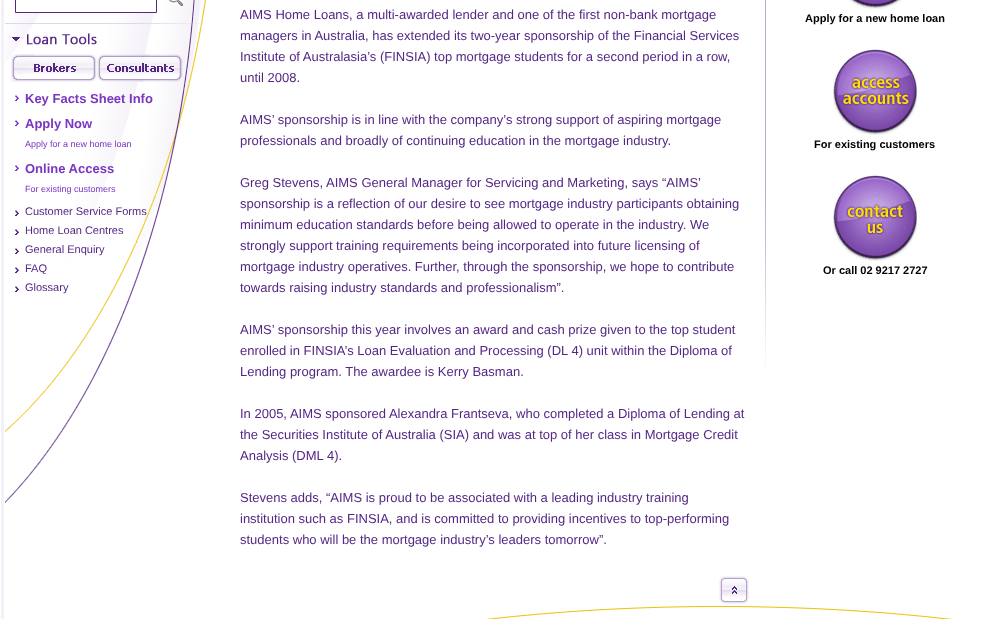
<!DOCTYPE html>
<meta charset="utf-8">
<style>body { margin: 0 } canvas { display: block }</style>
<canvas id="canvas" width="983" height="619"></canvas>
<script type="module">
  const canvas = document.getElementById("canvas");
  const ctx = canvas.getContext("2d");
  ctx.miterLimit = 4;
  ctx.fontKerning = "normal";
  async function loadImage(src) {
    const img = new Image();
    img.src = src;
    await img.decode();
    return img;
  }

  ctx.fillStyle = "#ffffff";
  ctx.fillRect(0, 0, 983, 619);
  ctx.fillStyle = "#f3f0f7";
  ctx.fillRect(1, 0, 3, 619);
  ctx.drawImage(await loadImage("img1.png"), 486, 606, 466, 13);
  ctx.drawImage(await loadImage("img2.png"), 5, 0, 201, 503);
  ctx.fillStyle = "#ffffff";
  ctx.beginPath();
  ctx.rect(15.5, -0.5, 141, 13);
  ctx.fill();
  ctx.strokeStyle = "#542785";
  ctx.stroke();
  ctx.drawImage(await loadImage("img3.png"), 169, 0, 14, 6);
  ctx.drawImage(await loadImage("img4.png"), 5, 23, 203, 1);
  ctx.drawImage(await loadImage("img5.png"), 12, 33, 85, 12);
  ctx.drawImage(await loadImage("img6.png"), 11, 54, 86, 28);
  ctx.drawImage(await loadImage("img7.png"), 97, 54, 86, 28);
  ctx.drawImage(await loadImage("img8.png"), 15, 95, 4, 6);
  ctx.font = "bold 13px Liberation Sans";
  ctx.fillStyle = "#7a36c1";
  ctx.fillText("Key Facts Sheet Info", 25, 103);
  ctx.drawImage(await loadImage("img8.png"), 15, 120, 4, 6);
  ctx.fillText("Apply Now", 25, 128);
  ctx.font = "9px Liberation Sans";
  ctx.fillText("Apply for a new home loan", 25, 147);
  ctx.drawImage(await loadImage("img8.png"), 15, 165, 4, 6);
  ctx.font = "bold 13px Liberation Sans";
  ctx.fillText("Online Access", 25, 173);
  ctx.font = "9px Liberation Sans";
  ctx.fillText("For existing customers", 25, 192);
  ctx.drawImage(await loadImage("img9.png"), 15, 210, 4, 6);
  ctx.font = "11px Liberation Sans";
  ctx.fillStyle = "#542785";
  ctx.fillText("Customer Service Forms", 25, 215);
  ctx.drawImage(await loadImage("img9.png"), 15, 229, 4, 6);
  ctx.fillText("Home Loan Centres", 25, 234);
  ctx.drawImage(await loadImage("img9.png"), 15, 248, 4, 6);
  ctx.fillText("General Enquiry", 25, 253);
  ctx.drawImage(await loadImage("img9.png"), 15, 267, 4, 6);
  ctx.fillText("FAQ", 25, 272);
  ctx.drawImage(await loadImage("img10.png"), 15, 286, 4, 6);
  ctx.fillText("Glossary", 25, 291);
  ctx.font = "13px Liberation Sans";
  ctx.fillText("AIMS Home Loans, a multi-awarded lender and one of the first non-bank mortgage", 240, 19);
  ctx.fillText("managers in Australia, has extended its two-year sponsorship of the Financial Services", 240, 40);
  ctx.fillText("Institute of Australasia’s (FINSIA) top mortgage students for a second period in a row,", 240, 61);
  ctx.fillText("until 2008.", 240, 82);
  ctx.fillText("AIMS’ sponsorship is in line with the company’s strong support of aspiring mortgage", 240, 124);
  ctx.fillText("professionals and broadly of continuing education in the mortgage industry.", 240, 145);
  ctx.fillText("Greg Stevens, AIMS General Manager for Servicing and Marketing, says “AIMS’", 240, 187);
  ctx.fillText("sponsorship is a reflection of our desire to see mortgage industry participants obtaining", 240, 208);
  ctx.fillText("minimum education standards before being allowed to operate in the industry. We", 240, 229);
  ctx.fillText("strongly support training requirements being incorporated into future licensing of", 240, 250);
  ctx.fillText("mortgage industry operatives. Further, through the sponsorship, we hope to contribute", 240, 271);
  ctx.fillText("towards raising industry standards and professionalism”.", 240, 292);
  ctx.fillText("AIMS’ sponsorship this year involves an award and cash prize given to the top student", 240, 334);
  ctx.fillText("enrolled in FINSIA’s Loan Evaluation and Processing (DL 4) unit within the Diploma of", 240, 355);
  ctx.fillText("Lending program. The awardee is Kerry Basman.", 240, 376);
  ctx.fillText("In 2005, AIMS sponsored Alexandra Frantseva, who completed a Diploma of Lending at", 240, 418);
  ctx.fillText("the Securities Institute of Australia (SIA) and was at top of her class in Mortgage Credit", 240, 439);
  ctx.fillText("Analysis (DML 4).", 240, 460);
  ctx.fillText("Stevens adds, “AIMS is proud to be associated with a leading industry training", 240, 502);
  ctx.fillText("institution such as FINSIA, and is committed to providing incentives to top-performing", 240, 523);
  ctx.fillText("students who will be the mortgage industry’s leaders tomorrow”.", 240, 544);
  ctx.drawImage(await loadImage("img11.png"), 719, 576, 30, 28);
  ctx.drawImage(await loadImage("img12.png"), 765, 0, 1, 371);
  ctx.drawImage(await loadImage("img13.png"), 849, 0, 52, 9);
  ctx.font = "bold 11px Liberation Sans";
  ctx.fillStyle = "#000000";
  ctx.fillText("Apply for a new home loan", 805, 22);
  ctx.drawImage(await loadImage("img14.png"), 833, 49, 84, 86);
  ctx.fillText("For existing customers", 814, 148);
  ctx.drawImage(await loadImage("img15.png"), 833, 175, 84, 86);
  ctx.fillText("Or call 02 9217 2727", 823, 274);
</script>
